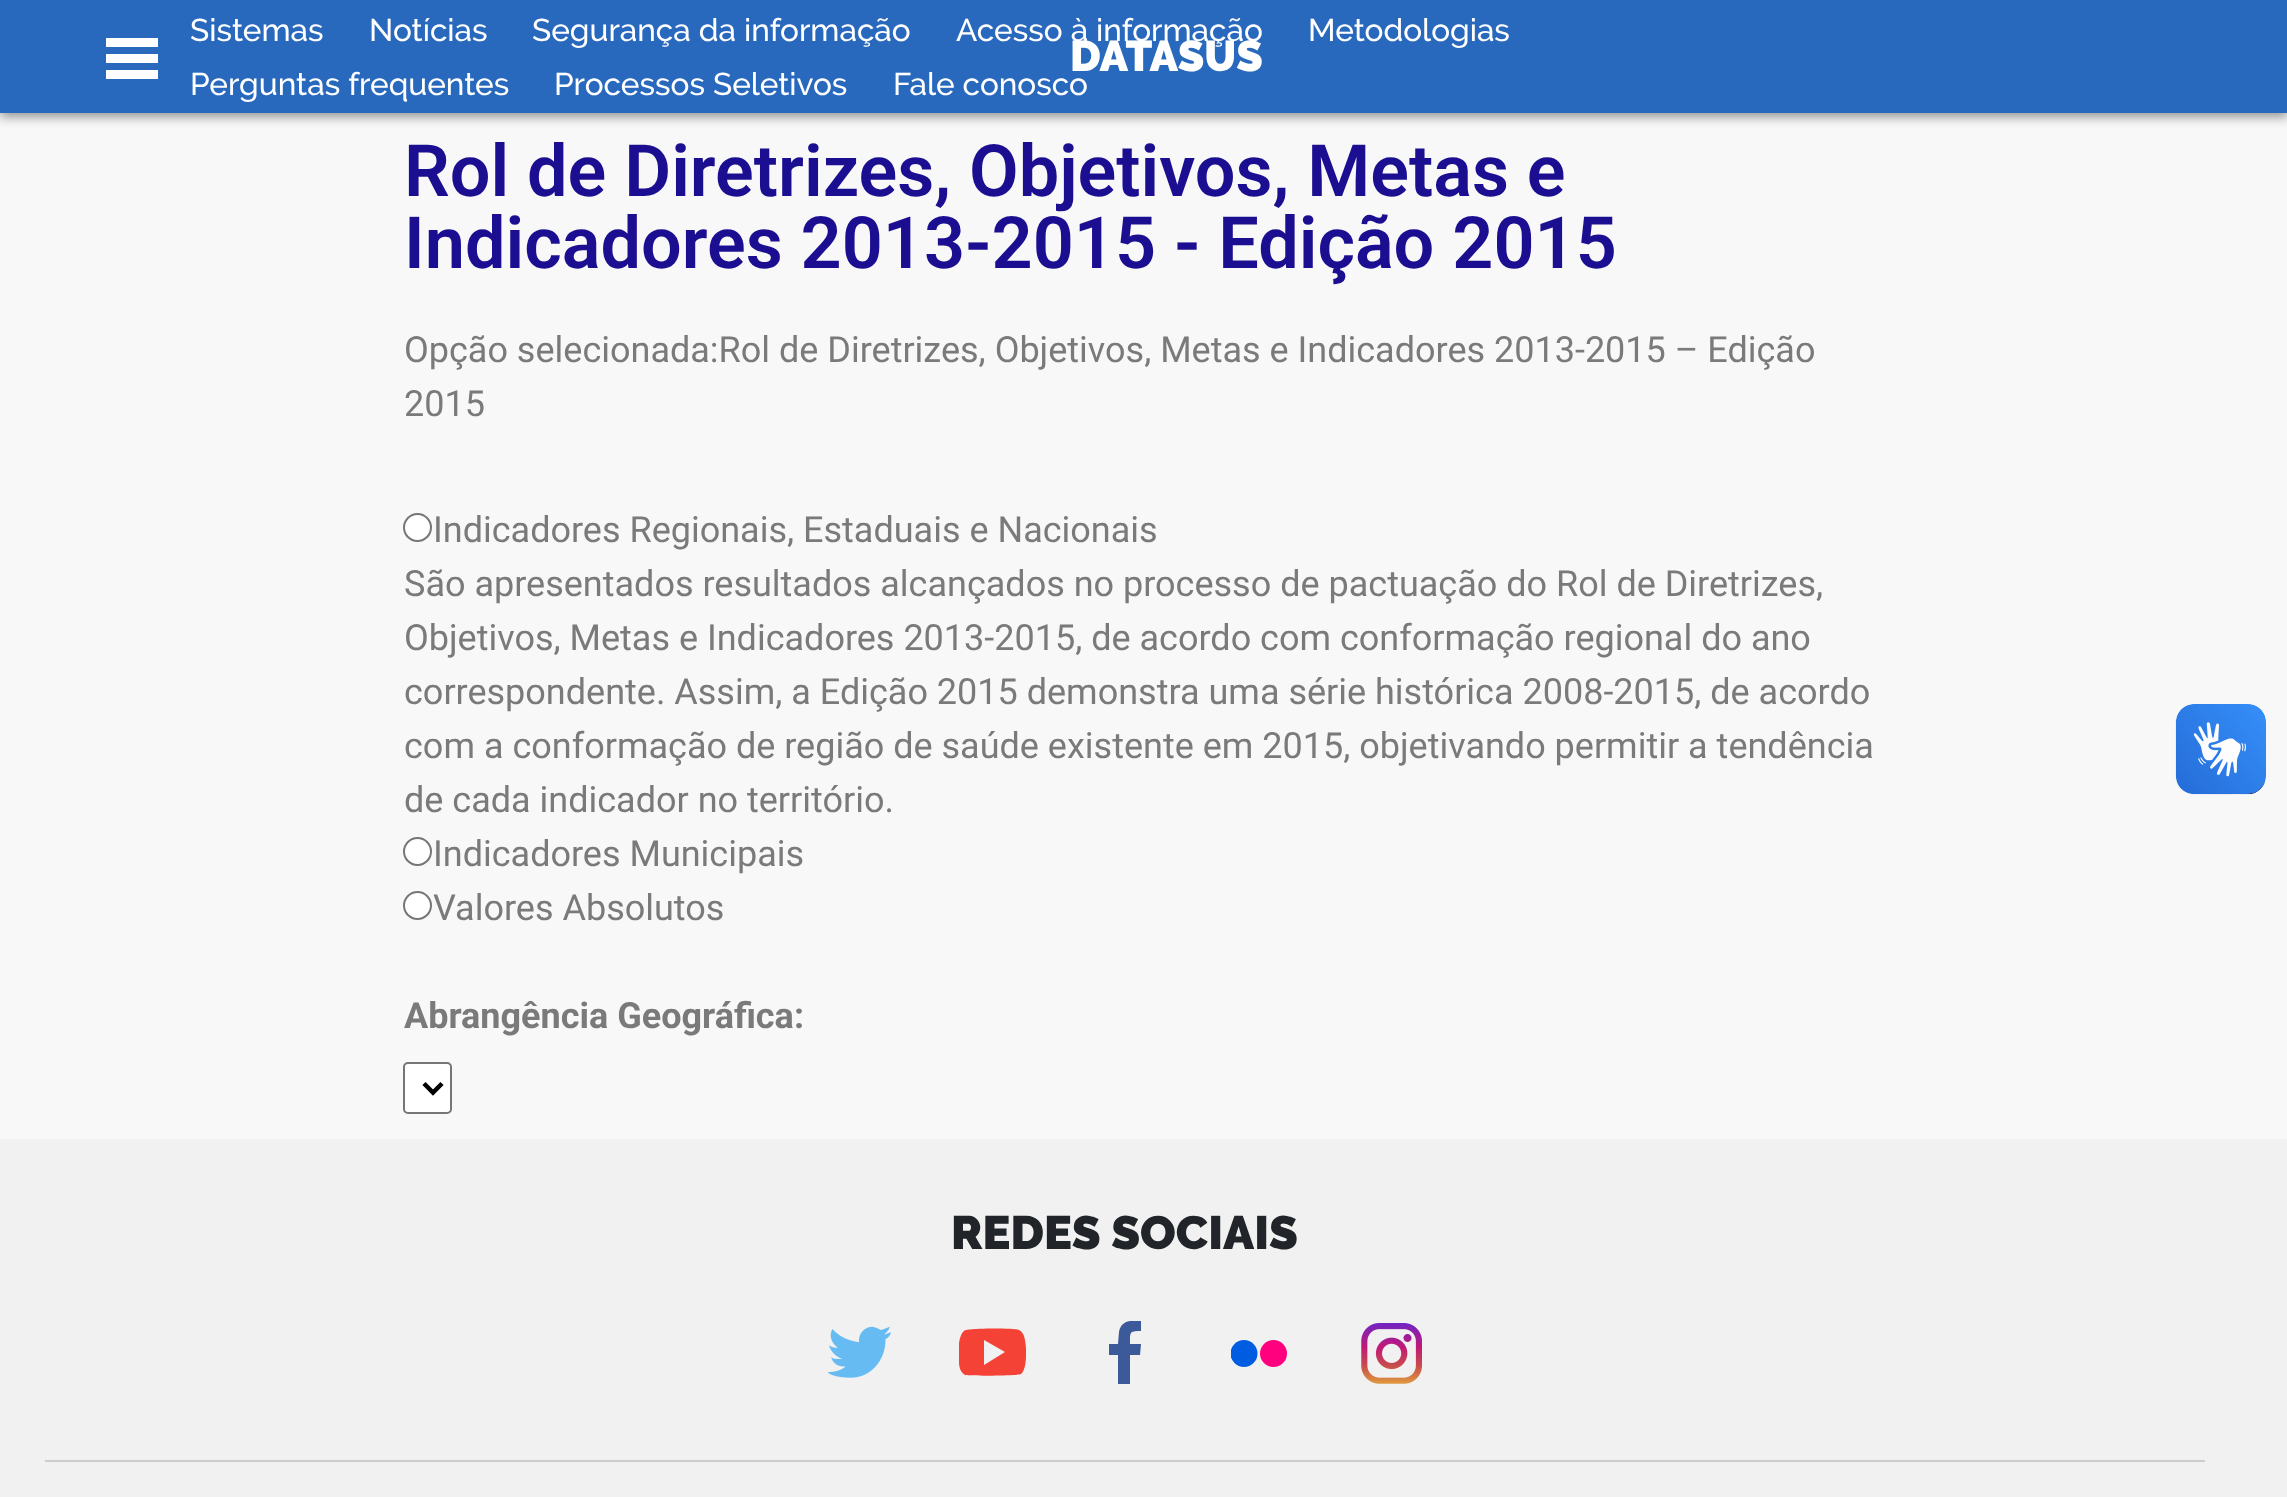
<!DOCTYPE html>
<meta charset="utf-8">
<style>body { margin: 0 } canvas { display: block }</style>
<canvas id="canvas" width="2287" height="1497"></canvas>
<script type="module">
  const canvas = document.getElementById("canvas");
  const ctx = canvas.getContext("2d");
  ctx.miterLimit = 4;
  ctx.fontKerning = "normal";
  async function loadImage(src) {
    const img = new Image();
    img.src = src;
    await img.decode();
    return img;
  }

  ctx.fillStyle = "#f8f8f8";
  ctx.fillRect(0, 0, 2287, 1497);
  ctx.fillStyle = "rgba(0, 0, 0, 0.4)";
  ctx.filter = "blur(5.5px)";
  ctx.beginPath();
  ctx.rect(0, 5, 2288, 112);
  ctx.fill();
  ctx.filter = "none";
  ctx.fillStyle = "#2969bd";
  ctx.fillRect(0, 0, 2287, 113);
  ctx.fillStyle = "#ffffff";
  ctx.fillRect(106, 38, 52, 9);
  ctx.fillRect(106, 54, 52, 9);
  ctx.fillRect(106, 70, 52, 9);
  ctx.font = "500 31.5px Raleway";
  ctx.fillText("Sistemas", 190, 41);
  ctx.fillText("Notícias", 369, 41);
  ctx.fillText("Segurança da informação", 532, 41);
  ctx.fillText("Acesso à informação", 956, 41);
  ctx.fillText("Metodologias", 1308, 41);
  ctx.fillText("Perguntas frequentes", 190, 95);
  ctx.fillText("Processos Seletivos", 554, 95);
  ctx.fillText("Fale conosco", 893, 95);
  ctx.font = "900 43px Raleway";
  ctx.fillText("DATASUS", 1070, 71);
  ctx.font = "600 72px Roboto";
  ctx.fillStyle = "#1b0e91";
  ctx.fillText("Rol de Diretrizes, Objetivos, Metas e", 404, 196);
  ctx.fillText("Indicadores 2013-2015 - Edição 2015", 404, 268);
  ctx.font = "36px Roboto";
  ctx.fillStyle = "#7a7a7a";
  ctx.fillText("Opção selecionada:Rol de Diretrizes, Objetivos, Metas e Indicadores 2013-2015 – Edição", 404, 362);
  ctx.fillText("2015", 404, 416);
  ctx.fillStyle = "#ffffff";
  ctx.beginPath();
  ctx.arc(417.5, 527.5, 13.5, 0, Math.PI * 2);
  ctx.fill();
  ctx.strokeStyle = "#767676";
  ctx.lineWidth = 2;
  ctx.stroke();
  ctx.fillStyle = "#7a7a7a";
  ctx.fillText("Indicadores Regionais, Estaduais e Nacionais", 433, 542);
  ctx.fillText("São apresentados resultados alcançados no processo de pactuação do Rol de Diretrizes,", 404, 596);
  ctx.fillText("Objetivos, Metas e Indicadores 2013-2015, de acordo com conformação regional do ano", 404, 650);
  ctx.fillText("correspondente. Assim, a Edição 2015 demonstra uma série histórica 2008-2015, de acordo", 404, 704);
  ctx.fillText("com a conformação de região de saúde existente em 2015, objetivando permitir a tendência", 404, 758);
  ctx.fillText("de cada indicador no território.", 404, 812);
  ctx.fillStyle = "#ffffff";
  ctx.beginPath();
  ctx.arc(417.5, 851.5, 13.5, 0, Math.PI * 2);
  ctx.fill();
  ctx.stroke();
  ctx.fillStyle = "#7a7a7a";
  ctx.fillText("Indicadores Municipais", 433, 866);
  ctx.fillStyle = "#ffffff";
  ctx.beginPath();
  ctx.arc(417.5, 905.5, 13.5, 0, Math.PI * 2);
  ctx.fill();
  ctx.stroke();
  ctx.fillStyle = "#7a7a7a";
  ctx.fillText("Valores Absolutos", 433, 920);
  ctx.font = "bold 36px Roboto";
  ctx.fillText("Abrangência Geográfica:", 404, 1028);
  ctx.fillStyle = "#ffffff";
  ctx.beginPath();
  ctx.roundRect(404, 1063, 47, 50, 4);
  ctx.fill();
  ctx.stroke();
  ctx.beginPath();
  ctx.moveTo(424, 1083.5);
  ctx.lineTo(433, 1092.5);
  ctx.lineTo(442, 1083.5);
  ctx.strokeStyle = "#000000";
  ctx.lineWidth = 4.5;
  ctx.stroke();
  ctx.drawImage(await loadImage("img1.png"), 2175, 704, 91, 91);
  ctx.drawImage(await loadImage("img2.png"), 2176, 704, 90, 90);
  ctx.fillStyle = "#f1f1f1";
  ctx.fillRect(0, 1139, 2287, 358);
  ctx.font = "900 46.75px Raleway";
  ctx.fillStyle = "#212529";
  ctx.fillText("REDES SOCIAIS", 951, 1249);
  ctx.fillStyle = "#cccccc";
  ctx.fillRect(45, 1460, 2160, 2);
  ctx.drawImage(await loadImage("img3.png"), 828, 1326, 63, 52);
  ctx.save();
  ctx.beginPath();
  ctx.rect(959, 1319, 67, 67);
  ctx.clip();
  ctx.fillStyle = "#f44336";
  ctx.beginPath();
  ctx.moveTo(1023, 1334);
  ctx.bezierCurveTo(1022, 1332, 1021, 1331, 1019, 1330);
  ctx.bezierCurveTo(1013, 1328, 967, 1328, 964, 1331);
  ctx.bezierCurveTo(957, 1336, 957, 1364, 961, 1371);
  ctx.bezierCurveTo(962, 1373, 964, 1374, 965, 1375);
  ctx.bezierCurveTo(971, 1376, 1017, 1376, 1021, 1374);
  ctx.bezierCurveTo(1028, 1369, 1027, 1340, 1023, 1334);
  ctx.closePath();
  ctx.moveTo(984, 1365);
  ctx.lineTo(984, 1340);
  ctx.lineTo(1005, 1352);
  ctx.closePath();
  ctx.fill();
  ctx.restore();
  ctx.save();
  ctx.beginPath();
  ctx.rect(1094, 1321, 63, 63);
  ctx.clip();
  ctx.fillStyle = "#3c5a99";
  ctx.beginPath();
  ctx.moveTo(1130, 1384);
  ctx.lineTo(1130, 1355);
  ctx.lineTo(1140, 1355);
  ctx.lineTo(1141, 1344);
  ctx.lineTo(1130, 1344);
  ctx.bezierCurveTo(1130, 1332, 1129, 1331, 1141, 1331);
  ctx.lineTo(1141, 1321);
  ctx.bezierCurveTo(1132, 1320, 1121, 1320, 1119, 1332);
  ctx.lineTo(1118, 1344);
  ctx.lineTo(1109, 1344);
  ctx.lineTo(1109, 1355);
  ctx.lineTo(1118, 1355);
  ctx.lineTo(1118, 1384);
  ctx.closePath();
  ctx.fill();
  ctx.restore();
  ctx.save();
  ctx.beginPath();
  ctx.rect(1231, 1325, 56, 57);
  ctx.clip();
  ctx.fillStyle = "#005de1";
  ctx.beginPath();
  ctx.arc(1244, 1353.5, 13.5, 0, Math.PI * 2);
  ctx.fill();
  ctx.restore();
  ctx.fillStyle = "#ff007e";
  ctx.beginPath();
  ctx.arc(1273.5, 1353.5, 13.5, 0, Math.PI * 2);
  ctx.fill();
  ctx.drawImage(await loadImage("img4.png"), 1361, 1323, 61, 61);
</script>
